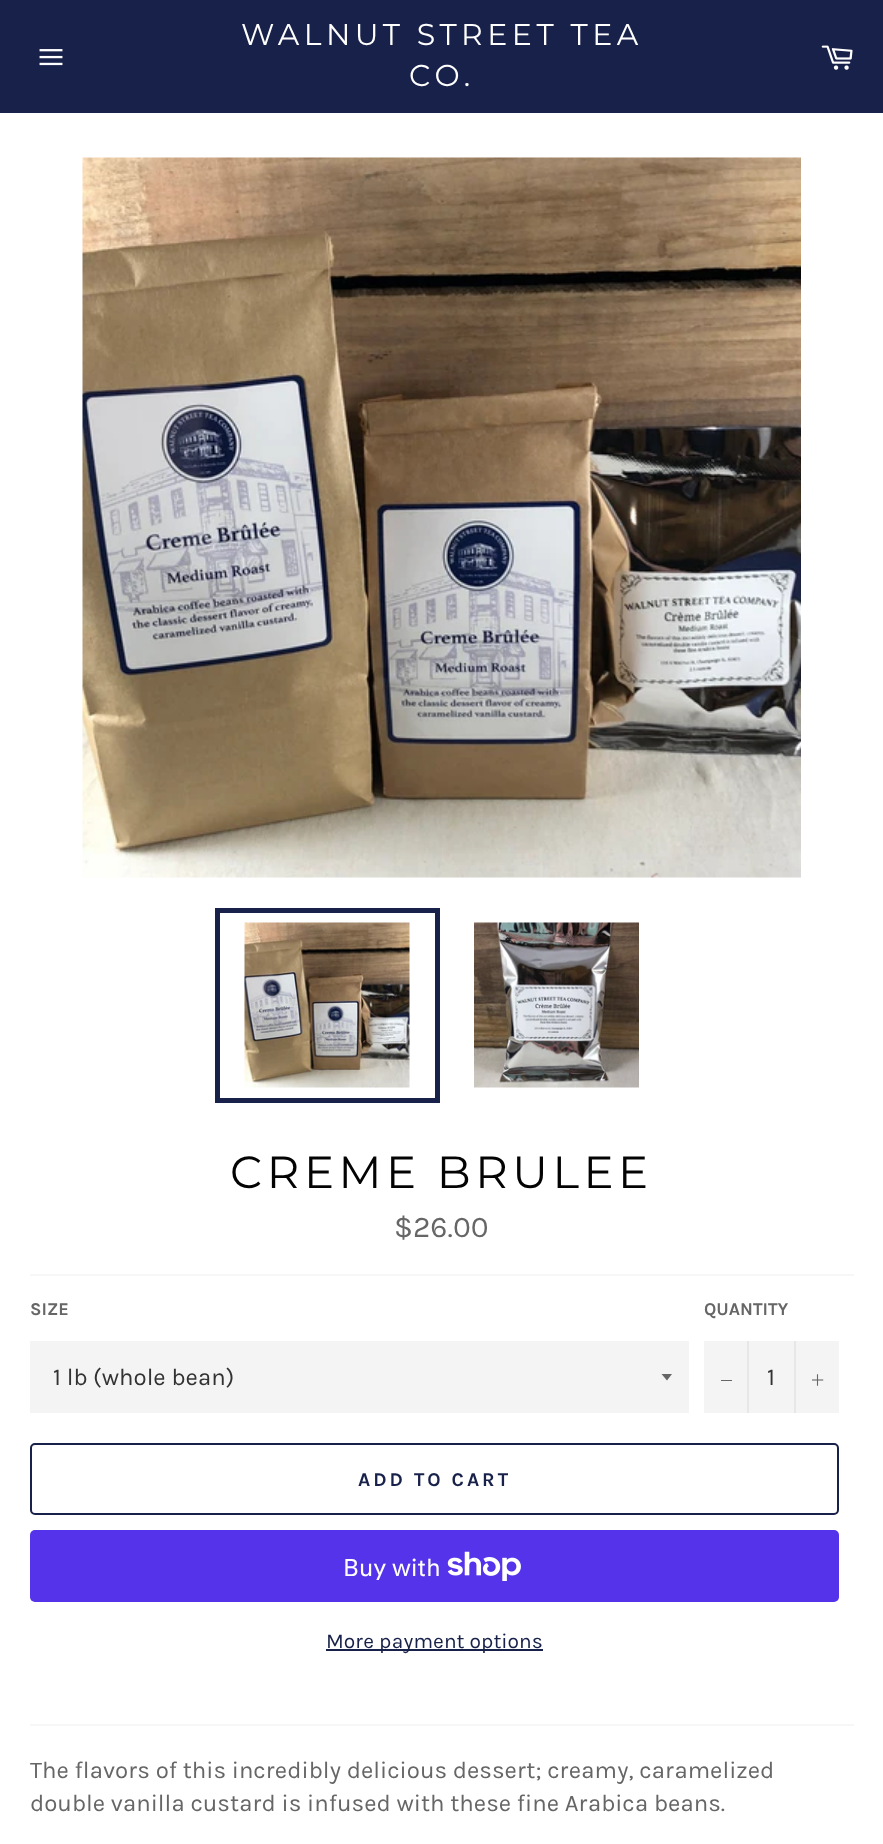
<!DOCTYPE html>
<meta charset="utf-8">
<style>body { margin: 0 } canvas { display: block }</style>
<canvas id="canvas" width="883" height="1844"></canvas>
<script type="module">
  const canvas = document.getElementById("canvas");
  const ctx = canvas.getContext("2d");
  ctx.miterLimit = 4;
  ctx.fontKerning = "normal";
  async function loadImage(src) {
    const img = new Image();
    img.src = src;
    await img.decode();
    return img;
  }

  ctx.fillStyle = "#182149";
  ctx.fillRect(0, 0, 883, 1844);
  ctx.drawImage(await loadImage("img1.png"), 39, 49, 24, 17);
  ctx.letterSpacing = "4.5px";
  ctx.font = "30px Montserrat";
  ctx.fillStyle = "#ffffff";
  ctx.fillText("WALNUT STREET TEA", 241, 45);
  ctx.fillText("CO.", 409, 86);
  ctx.drawImage(await loadImage("img2.png"), 821, 45, 32, 25);
  ctx.fillRect(0, 113, 883, 1731);
  ctx.drawImage(await loadImage("img3.png"), 82, 157, 719, 721);
  ctx.drawImage(await loadImage("img4.png"), 244, 922, 166, 166);
  ctx.strokeStyle = "#182149";
  ctx.lineWidth = 5;
  ctx.strokeRect(217.5, 910.5, 220, 190);
  ctx.drawImage(await loadImage("img5.png"), 474, 922, 165, 166);
  ctx.font = "45px Montserrat";
  ctx.fillStyle = "#030303";
  ctx.fillText("CREME BRULEE", 230, 1188);
  ctx.letterSpacing = "0px";
  ctx.font = "30px Karla";
  ctx.fillStyle = "#666666";
  ctx.fillText("$26.00", 394, 1237);
  ctx.fillStyle = "#f7f7f7";
  ctx.fillRect(30, 1274, 824, 2);
  ctx.font = "bold 18px Karla";
  ctx.fillStyle = "#666666";
  ctx.fillText("SIZE", 30, 1315);
  ctx.fillStyle = "#f4f4f4";
  ctx.fillRect(30, 1341, 659, 72);
  ctx.fillStyle = "#666666";
  ctx.beginPath();
  ctx.moveTo(661.5, 1374);
  ctx.lineTo(667, 1380.5);
  ctx.lineTo(672, 1374);
  ctx.closePath();
  ctx.fill();
  ctx.font = "24px Karla";
  ctx.fillStyle = "#333333";
  ctx.fillText("1 lb (whole bean)", 53, 1385);
  ctx.font = "bold 18px Karla";
  ctx.fillStyle = "#666666";
  ctx.fillText("QUANTITY", 704, 1315);
  ctx.fillStyle = "#f4f4f4";
  ctx.fillRect(704, 1341, 135, 72);
  ctx.fillStyle = "#e7e7e7";
  ctx.fillRect(747, 1341, 2, 72);
  ctx.fillStyle = "#666666";
  ctx.fillRect(721, 1380, 11, 1);
  ctx.font = "24px Karla";
  ctx.fillStyle = "#333333";
  ctx.fillText("1", 767, 1385);
  ctx.fillStyle = "#e7e7e7";
  ctx.fillRect(794, 1341, 2, 72);
  ctx.drawImage(await loadImage("img6.png"), 812, 1374, 12, 12);
  ctx.beginPath();
  ctx.roundRect(31, 1444, 807, 70, 4);
  ctx.lineWidth = 2;
  ctx.stroke();
  ctx.letterSpacing = "3px";
  ctx.font = "bold 19.5px Karla";
  ctx.fillStyle = "#182149";
  ctx.fillText("ADD TO CART", 358, 1486);
  ctx.fillStyle = "#5433eb";
  ctx.beginPath();
  ctx.roundRect(30, 1530, 809, 72, 5);
  ctx.fill();
  ctx.letterSpacing = "0px";
  ctx.font = "24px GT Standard";
  ctx.fillStyle = "#ffffff";
  ctx.fillText("Buy with", 343, 1576);
  ctx.drawImage(await loadImage("img7.png"), 447, 1551, 74, 30);
  ctx.fillStyle = "#182149";
  ctx.fillRect(326, 1649, 217, 2);
  ctx.font = "21px Karla";
  ctx.fillText("More payment options", 326, 1648);
  ctx.fillStyle = "#f7f7f7";
  ctx.fillRect(30, 1724, 824, 2);
  ctx.font = "24px Karla";
  ctx.fillStyle = "#666666";
  ctx.fillText("The flavors of this incredibly delicious dessert; creamy, caramelized", 30, 1778);
  ctx.fillText("double vanilla custard is infused with these fine Arabica beans.", 30, 1811);
</script>
